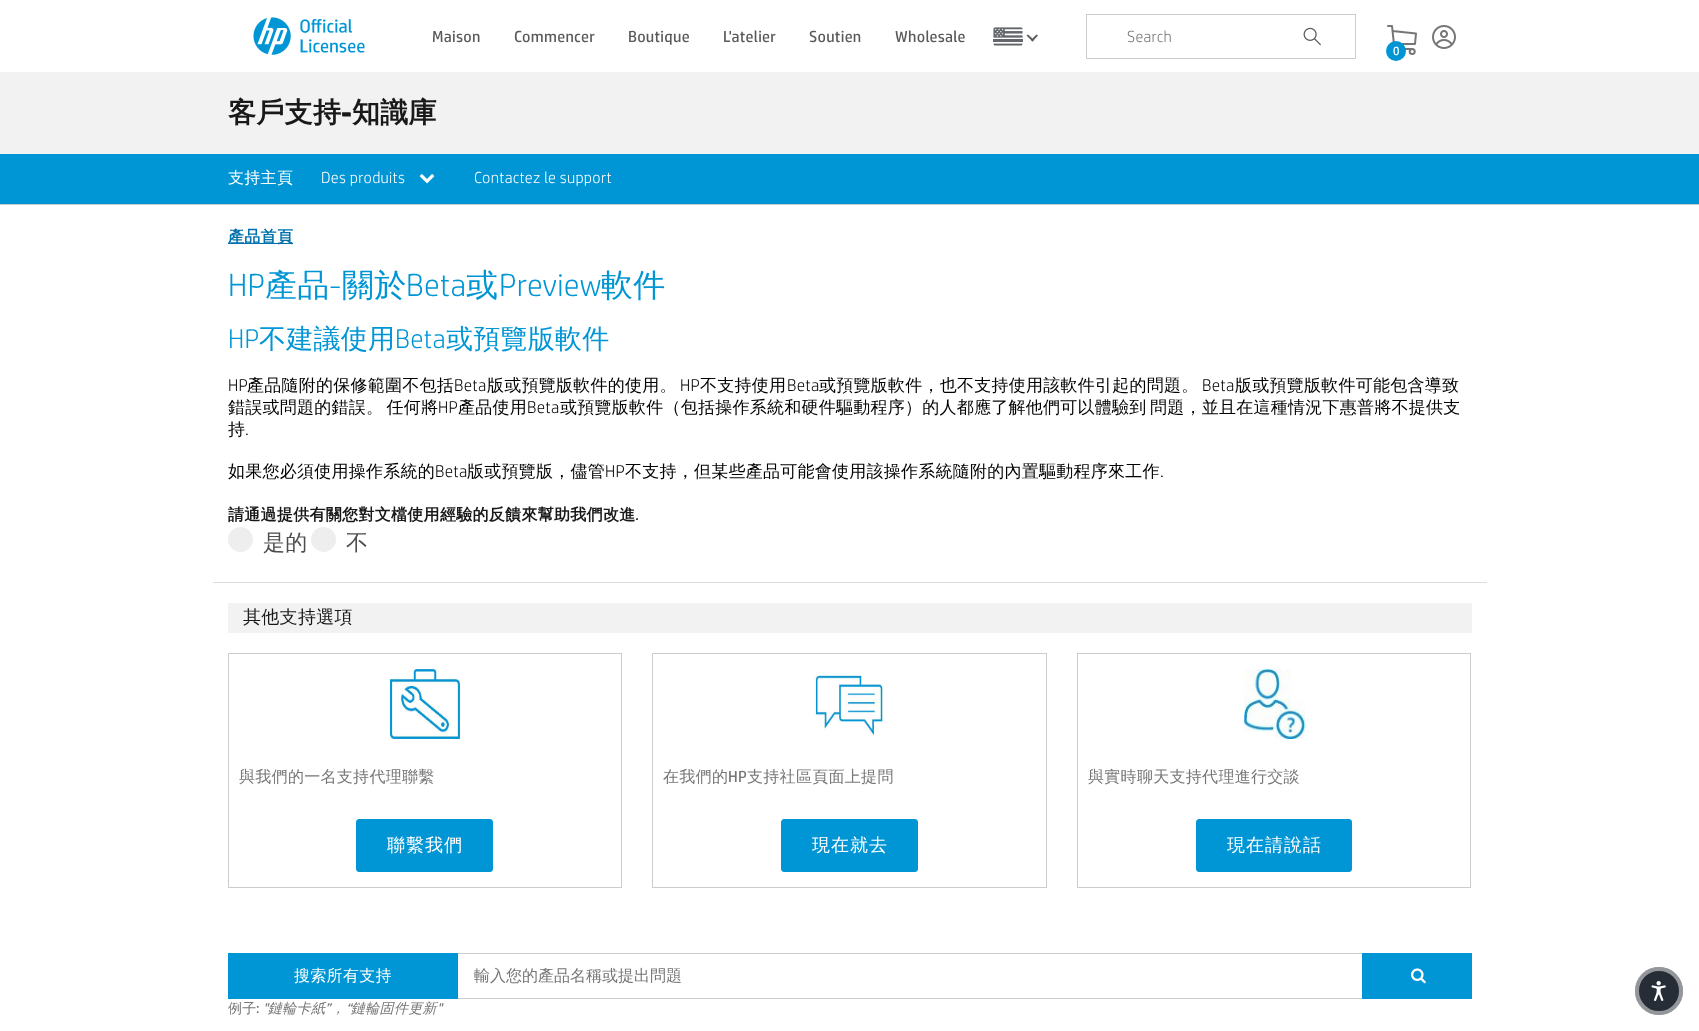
<!DOCTYPE html>
<meta charset="utf-8">
<style>body { margin: 0 } canvas { display: block }</style>
<canvas id="canvas" width="1699" height="1031"></canvas>
<script type="module">
  const canvas = document.getElementById("canvas");
  const ctx = canvas.getContext("2d");
  ctx.miterLimit = 4;
  ctx.fontKerning = "normal";
  async function loadImage(src) {
    const img = new Image();
    img.src = src;
    await img.decode();
    return img;
  }

  ctx.fillStyle = "#f2f2f2";
  ctx.fillRect(0, 0, 1699, 1031);
  ctx.fillStyle = "#ffffff";
  ctx.fillRect(0, 0, 1699, 72);
  ctx.drawImage(await loadImage("img1.png"), 253, 17, 112, 38);
  ctx.letterSpacing = "0.3px";
  ctx.font = "16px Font";
  ctx.fillStyle = "#5a5a5a";
  ctx.fillText("Maison", 432, 42);
  ctx.fillText("Commencer", 514, 42);
  ctx.fillText("Boutique", 628, 42);
  ctx.fillText("L'atelier", 723, 42);
  ctx.fillText("Soutien", 809, 42);
  ctx.fillText("Wholesale", 895, 42);
  ctx.drawImage(await loadImage("img2.png"), 993, 27, 30, 19);
  ctx.beginPath();
  ctx.moveTo(1036.5, 34.5);
  ctx.lineTo(1038, 35.5);
  ctx.lineTo(1032.5, 41.5);
  ctx.lineTo(1031, 40);
  ctx.closePath();
  ctx.fill();
  ctx.beginPath();
  ctx.moveTo(1028, 34.5);
  ctx.lineTo(1034, 40);
  ctx.lineTo(1032.5, 41.5);
  ctx.lineTo(1026.5, 35.5);
  ctx.closePath();
  ctx.fill();
  ctx.strokeStyle = "#cccccc";
  ctx.strokeRect(1086.5, 14.5, 269, 44);
  ctx.font = "300 16px 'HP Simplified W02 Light'";
  ctx.fillStyle = "#767676";
  ctx.fillText("Search", 1127, 42);
  ctx.drawImage(await loadImage("img3.png"), 1303, 27, 18, 19);
  ctx.drawImage(await loadImage("img4.png"), 1432, 25, 24, 24);
  ctx.beginPath();
  ctx.arc(1412.2, 51.5, 2.5, 0, Math.PI * 2);
  ctx.strokeStyle = "#767676";
  ctx.lineWidth = 2;
  ctx.stroke();
  ctx.beginPath();
  ctx.moveTo(1412, 49);
  ctx.lineTo(1394.5, 49);
  ctx.lineTo(1392, 26);
  ctx.lineTo(1388, 26);
  ctx.moveTo(1392.5, 31);
  ctx.lineTo(1416, 33.5);
  ctx.lineTo(1415, 44);
  ctx.lineTo(1394, 44);
  ctx.lineCap = "round";
  ctx.lineJoin = "round";
  ctx.stroke();
  ctx.fillStyle = "#0096d6";
  ctx.beginPath();
  ctx.arc(1396, 51, 10, 0, Math.PI * 2);
  ctx.fill();
  ctx.font = "12px Font";
  ctx.fillStyle = "#ffffff";
  ctx.fillText("0", 1393, 55);
  ctx.font = "bold 28px WenQuanYi Zen Hei";
  ctx.fillStyle = "#191919";
  ctx.fillText("客戶支持", 228, 122);
  ctx.font = "bold 28px 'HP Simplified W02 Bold'";
  ctx.fillText("-", 341, 122);
  ctx.font = "bold 28px WenQuanYi Zen Hei";
  ctx.fillText("知識庫", 352, 122);
  ctx.fillStyle = "#0096d6";
  ctx.fillRect(0, 154, 1699, 50);
  ctx.fillStyle = "#cccccc";
  ctx.fillRect(0, 204, 1699, 1);
  ctx.font = "500 16px WenQuanYi Zen Hei";
  ctx.fillStyle = "#ffffff";
  ctx.fillText("支持主頁", 228, 183);
  ctx.font = "300 16px 'HP Simplified W02 Light'";
  ctx.fillText("Des produits", 321, 183);
  ctx.drawImage(await loadImage("img5.png"), 419, 174, 16, 10);
  ctx.fillText("Contactez le support", 474, 183);
  ctx.fillRect(0, 205, 1699, 826);
  ctx.fillStyle = "#0171ad";
  ctx.fillRect(228, 243, 65, 1);
  ctx.font = "bold 16px WenQuanYi Zen Hei";
  ctx.fillText("產品首頁", 228, 242);
  ctx.letterSpacing = "0.25px";
  ctx.font = "300 32px 'HP Simplified W02 Light'";
  ctx.fillStyle = "#0096d6";
  ctx.fillText("HP", 228, 296);
  ctx.font = "500 32px WenQuanYi Zen Hei";
  ctx.fillText("產品", 265, 296);
  ctx.font = "300 32px 'HP Simplified W02 Light'";
  ctx.fillText("-", 329, 296);
  ctx.font = "500 32px WenQuanYi Zen Hei";
  ctx.fillText("關於", 342, 296);
  ctx.font = "300 32px 'HP Simplified W02 Light'";
  ctx.fillText("Beta", 406, 296);
  ctx.font = "500 32px WenQuanYi Zen Hei";
  ctx.fillText("或", 466, 296);
  ctx.font = "300 32px 'HP Simplified W02 Light'";
  ctx.fillText("Preview", 499, 296);
  ctx.font = "500 32px WenQuanYi Zen Hei";
  ctx.fillText("軟件", 601, 296);
  ctx.font = "300 27px 'HP Simplified W02 Light'";
  ctx.fillText("HP", 228, 348);
  ctx.font = "500 27px WenQuanYi Zen Hei";
  ctx.fillText("不建議使用", 259, 348);
  ctx.font = "300 27px 'HP Simplified W02 Light'";
  ctx.fillText("Beta", 395, 348);
  ctx.font = "500 27px WenQuanYi Zen Hei";
  ctx.fillText("或預覽版軟件", 446, 348);
  ctx.font = "300 17px 'HP Simplified W02 Light'";
  ctx.fillStyle = "#000000";
  ctx.fillText("HP", 228, 391);
  ctx.font = "500 17px WenQuanYi Zen Hei";
  ctx.fillText("產品隨附的保修範圍不包括", 247, 391);
  ctx.font = "300 17px 'HP Simplified W02 Light'";
  ctx.fillText("Beta", 454, 391);
  ctx.font = "500 17px WenQuanYi Zen Hei";
  ctx.fillText("版或預覽版軟件的使用。", 487, 391);
  ctx.font = "300 17px 'HP Simplified W02 Light'";
  ctx.fillText("HP", 680, 391);
  ctx.font = "500 17px WenQuanYi Zen Hei";
  ctx.fillText("不支持使用", 700, 391);
  ctx.font = "300 17px 'HP Simplified W02 Light'";
  ctx.fillText("Beta", 787, 391);
  ctx.font = "500 17px WenQuanYi Zen Hei";
  ctx.fillText("或預覽版軟件，也不支持使用該軟件引起的問題。", 819, 391);
  ctx.font = "300 17px 'HP Simplified W02 Light'";
  ctx.fillText("Beta", 1202, 391);
  ctx.font = "500 17px WenQuanYi Zen Hei";
  ctx.fillText("版或預覽版軟件可能包含導致", 1235, 391);
  ctx.wordSpacing = "-2px";
  ctx.fillText("錯誤或問題的錯誤。 任何將", 228, 413);
  ctx.wordSpacing = "0px";
  ctx.font = "300 17px 'HP Simplified W02 Light'";
  ctx.fillText("HP", 438, 413);
  ctx.font = "500 17px WenQuanYi Zen Hei";
  ctx.fillText("產品使用", 458, 413);
  ctx.font = "300 17px 'HP Simplified W02 Light'";
  ctx.fillText("Beta", 527, 413);
  ctx.font = "500 17px WenQuanYi Zen Hei";
  ctx.fillText("或預覽版軟件（包括操作系統和硬件驅動程序）的人都應了解他們可以體驗到", 560, 413);
  ctx.fillText("問題，並且在這種情況下惠普將不提供支", 1150, 413);
  ctx.fillText("持", 228, 435);
  ctx.font = "300 17px 'HP Simplified W02 Light'";
  ctx.fillText(".", 245, 435);
  ctx.font = "500 17px WenQuanYi Zen Hei";
  ctx.fillText("如果您必須使用操作系統的", 228, 477);
  ctx.font = "300 17px 'HP Simplified W02 Light'";
  ctx.fillText("Beta", 435, 477);
  ctx.font = "500 17px WenQuanYi Zen Hei";
  ctx.fillText("版或預覽版，儘管", 467, 477);
  ctx.font = "300 17px 'HP Simplified W02 Light'";
  ctx.fillText("HP", 605, 477);
  ctx.font = "500 17px WenQuanYi Zen Hei";
  ctx.fillText("不支持，但某些產品可能會使用該操作系統隨附的內置驅動程序來工作", 625, 477);
  ctx.font = "300 17px 'HP Simplified W02 Light'";
  ctx.fillText(".", 1160, 477);
  ctx.letterSpacing = "0.3px";
  ctx.font = "bold 16px WenQuanYi Zen Hei";
  ctx.fillStyle = "#191919";
  ctx.fillText("請通過提供有關您對文檔使用經驗的反饋來幫助我們改進", 228, 520);
  ctx.font = "bold 16px 'HP Simplified W02 Light'";
  ctx.fillText(".", 635, 520);
  ctx.fillStyle = "#eeeeee";
  ctx.beginPath();
  ctx.arc(240.5, 539.5, 12.5, 0, Math.PI * 2);
  ctx.fill();
  ctx.font = "500 22px WenQuanYi Zen Hei";
  ctx.fillStyle = "#4d4d4d";
  ctx.fillText("是的", 263, 550);
  ctx.fillStyle = "#eeeeee";
  ctx.beginPath();
  ctx.arc(323.5, 539.5, 12.5, 0, Math.PI * 2);
  ctx.fill();
  ctx.fillStyle = "#4d4d4d";
  ctx.fillText("不", 346, 550);
  ctx.fillStyle = "#dddddd";
  ctx.fillRect(213, 582, 1274, 1);
  ctx.fillStyle = "#f2f2f2";
  ctx.fillRect(228, 603, 1244, 30);
  ctx.font = "500 18px WenQuanYi Zen Hei";
  ctx.fillStyle = "#191919";
  ctx.fillText("其他支持選項", 243, 623);
  ctx.strokeStyle = "#cccccc";
  ctx.lineWidth = 1;
  ctx.lineJoin = "miter";
  ctx.strokeRect(228.5, 653.5, 393, 234);
  ctx.drawImage(await loadImage("img6.png"), 390, 669, 70, 70);
  ctx.font = "500 16px WenQuanYi Zen Hei";
  ctx.fillStyle = "#767676";
  ctx.fillText("與我們的一名支持代理聯繫", 239, 782);
  ctx.fillStyle = "#0096d6";
  ctx.beginPath();
  ctx.roundRect(356.5, 819.5, 136, 52, 2.5);
  ctx.fill();
  ctx.strokeStyle = "#0096d6";
  ctx.stroke();
  ctx.letterSpacing = "1px";
  ctx.font = "500 18px WenQuanYi Zen Hei";
  ctx.fillStyle = "#ffffff";
  ctx.fillText("聯繫我們", 387, 851);
  ctx.strokeStyle = "#cccccc";
  ctx.strokeRect(652.5, 653.5, 394, 234);
  ctx.drawImage(await loadImage("img7.png"), 814, 675, 70, 62);
  ctx.letterSpacing = "0.3px";
  ctx.font = "500 16px WenQuanYi Zen Hei";
  ctx.fillStyle = "#767676";
  ctx.fillText("在我們的", 663, 782);
  ctx.font = "16px 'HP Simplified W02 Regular'";
  ctx.fillText("HP", 728, 782);
  ctx.font = "500 16px WenQuanYi Zen Hei";
  ctx.fillText("支持社區頁面上提問", 747, 782);
  ctx.fillStyle = "#0096d6";
  ctx.beginPath();
  ctx.roundRect(781.5, 819.5, 136, 52, 2.5);
  ctx.fill();
  ctx.strokeStyle = "#0096d6";
  ctx.stroke();
  ctx.letterSpacing = "1px";
  ctx.font = "500 18px WenQuanYi Zen Hei";
  ctx.fillStyle = "#ffffff";
  ctx.fillText("現在就去", 812, 851);
  ctx.strokeStyle = "#cccccc";
  ctx.strokeRect(1077.5, 653.5, 393, 234);
  ctx.drawImage(await loadImage("img8.png"), 1244, 669, 61, 70);
  ctx.letterSpacing = "0.3px";
  ctx.font = "500 16px WenQuanYi Zen Hei";
  ctx.fillStyle = "#767676";
  ctx.fillText("與實時聊天支持代理進行交談", 1088, 782);
  ctx.fillStyle = "#0096d6";
  ctx.beginPath();
  ctx.roundRect(1196.5, 819.5, 155, 52, 2.5);
  ctx.fill();
  ctx.strokeStyle = "#0096d6";
  ctx.stroke();
  ctx.letterSpacing = "1px";
  ctx.font = "500 18px WenQuanYi Zen Hei";
  ctx.fillStyle = "#ffffff";
  ctx.fillText("現在請說話", 1227, 851);
  ctx.strokeStyle = "#cccccc";
  ctx.strokeRect(228.5, 953.5, 1243, 45);
  ctx.fillStyle = "#0096d6";
  ctx.fillRect(228, 953, 230, 46);
  ctx.letterSpacing = "0.3px";
  ctx.font = "500 16px WenQuanYi Zen Hei";
  ctx.fillStyle = "#ffffff";
  ctx.fillText("搜索所有支持", 294, 981);
  ctx.save();
  ctx.beginPath();
  ctx.rect(474, 966, 903, 21);
  ctx.clip();
  ctx.letterSpacing = "0px";
  ctx.fillStyle = "#767676";
  ctx.fillText("輸入您的產品名稱或提出問題", 474, 981);
  ctx.restore();
  ctx.fillStyle = "#0096d6";
  ctx.fillRect(1362, 953, 110, 46);
  ctx.drawImage(await loadImage("img9.png"), 1411, 968, 15, 16);
  ctx.font = "500 14px WenQuanYi Zen Hei";
  ctx.fillStyle = "#767676";
  ctx.fillText("例子", 228, 1013);
  ctx.font = "14px 'HP Simplified W02 Regular'";
  ctx.fillText(":", 256, 1013);
  ctx.font = "italic 14px 'HP Simplified W02 Regular'";
  ctx.fillText("\"", 263, 1013);
  ctx.font = "italic 500 14px WenQuanYi Zen Hei";
  ctx.fillText("鏈輪卡紙", 268, 1013);
  ctx.font = "italic 14px 'HP Simplified W02 Regular'";
  ctx.fillText("”", 325, 1013);
  ctx.font = "italic 500 14px WenQuanYi Zen Hei";
  ctx.fillText("，", 331, 1013);
  ctx.font = "italic 14px 'HP Simplified W02 Regular'";
  ctx.fillText("“", 346, 1013);
  ctx.font = "italic 500 14px WenQuanYi Zen Hei";
  ctx.fillText("鏈輪固件更新", 351, 1013);
  ctx.font = "italic 14px 'HP Simplified W02 Regular'";
  ctx.fillText("\"", 437, 1013);
  ctx.fillStyle = "#272d36";
  ctx.beginPath();
  ctx.arc(1659, 991, 24, 0, Math.PI * 2);
  ctx.fill();
  ctx.beginPath();
  ctx.arc(1659, 991, 22, 0, Math.PI * 2);
  ctx.strokeStyle = "rgba(255, 255, 255, 0.5)";
  ctx.lineWidth = 4;
  ctx.stroke();
  ctx.drawImage(await loadImage("img10.png"), 1651, 981, 15, 20);
</script>
